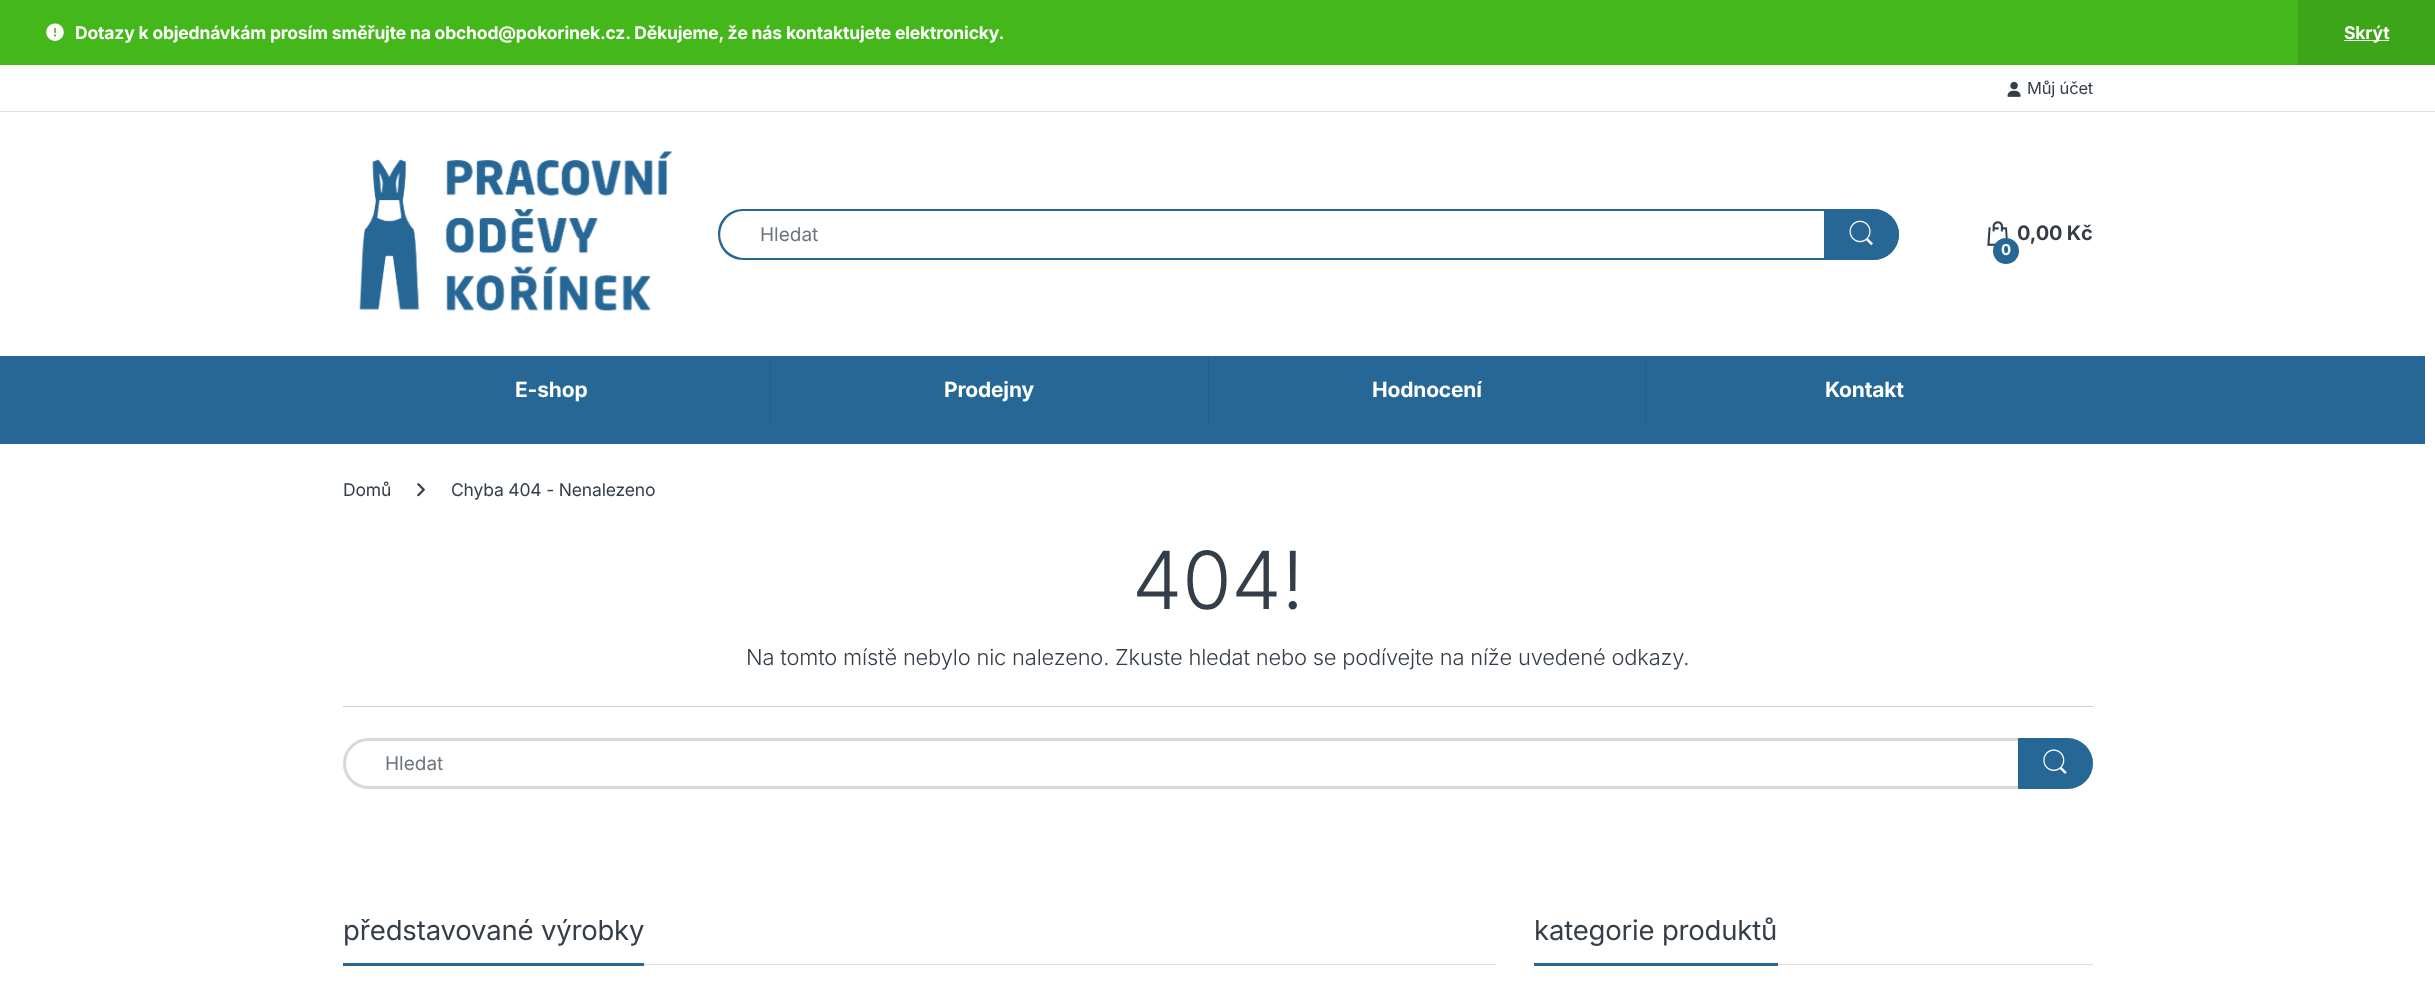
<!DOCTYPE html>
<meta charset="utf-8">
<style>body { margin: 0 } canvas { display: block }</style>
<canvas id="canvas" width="2435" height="991"></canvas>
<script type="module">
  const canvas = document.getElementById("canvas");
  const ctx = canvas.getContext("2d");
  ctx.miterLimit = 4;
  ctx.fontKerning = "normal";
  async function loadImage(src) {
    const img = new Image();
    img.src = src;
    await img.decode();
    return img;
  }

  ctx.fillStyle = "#ffffff";
  ctx.fillRect(0, 0, 2435, 991);
  ctx.fillStyle = "#44b81b";
  ctx.fillRect(0, 0, 2298, 65);
  ctx.drawImage(await loadImage("img1.png"), 46, 23, 18, 18);
  ctx.letterSpacing = "-0.18px";
  ctx.font = "bold 17.5px Inter";
  ctx.fillStyle = "#ffffff";
  ctx.fillText("Dotazy k objednávkám prosím směřujte na obchod@pokorinek.cz. Děkujeme, že nás kontaktujete elektronicky.", 75, 39);
  ctx.fillStyle = "#3da618";
  ctx.fillRect(2298, 0, 137, 65);
  ctx.fillStyle = "#ffffff";
  ctx.fillRect(2344, 40, 45, 1);
  ctx.fillText("Skrýt", 2344, 39);
  ctx.fillStyle = "#dddddd";
  ctx.fillRect(0, 111, 2435, 1);
  ctx.drawImage(await loadImage("img2.png"), 2007, 81, 14, 16);
  ctx.font = "16.5px Inter";
  ctx.fillStyle = "#333e48";
  ctx.fillText("Můj účet", 2027, 94);
  ctx.drawImage(await loadImage("img3.png"), 359, 151, 314, 160);
  ctx.fillStyle = "#276796";
  ctx.beginPath();
  ctx.moveTo(743, 209);
  ctx.lineTo(1873, 209);
  ctx.bezierCurveTo(1887, 209, 1899, 220, 1899, 234);
  ctx.bezierCurveTo(1899, 249, 1887, 260, 1873, 260);
  ctx.lineTo(743, 260);
  ctx.bezierCurveTo(729, 260, 718, 249, 718, 234);
  ctx.bezierCurveTo(718, 220, 729, 209, 743, 209);
  ctx.closePath();
  ctx.moveTo(743, 211);
  ctx.lineTo(1873, 211);
  ctx.bezierCurveTo(1907, 211, 1907, 257, 1873, 258);
  ctx.lineTo(743, 258);
  ctx.bezierCurveTo(734, 257, 725, 252, 722, 243);
  ctx.bezierCurveTo(716, 228, 727, 211, 743, 211);
  ctx.closePath();
  ctx.fill("evenodd");
  ctx.letterSpacing = "0px";
  ctx.font = "19px Inter";
  ctx.fillStyle = "#6c757d";
  ctx.fillText("Hledat", 760, 241);
  ctx.fillStyle = "#276796";
  ctx.beginPath();
  ctx.roundRect(1824, 209, 75, 51, [0, 25.5, 25.5, 0]);
  ctx.fill();
  ctx.drawImage(await loadImage("img4.png"), 1849, 220, 24, 26);
  ctx.drawImage(await loadImage("img5.png"), 1987, 221, 21, 25);
  ctx.letterSpacing = "-0.18px";
  ctx.font = "bold 20px Inter";
  ctx.fillStyle = "#333e48";
  ctx.fillText("0,00 Kč", 2017, 240);
  ctx.fillStyle = "#276796";
  ctx.beginPath();
  ctx.arc(2006, 251, 13, 0, Math.PI * 2);
  ctx.fill();
  ctx.font = "bold 15px Inter";
  ctx.fillStyle = "#ffffff";
  ctx.fillText("0", 2001, 255);
  ctx.fillStyle = "#276796";
  ctx.fillRect(0, 356, 2425, 88);
  ctx.font = "bold 21px Inter";
  ctx.fillStyle = "#ffffff";
  ctx.fillText("E-shop", 515, 397);
  ctx.fillStyle = "#245f8a";
  ctx.fillRect(770, 356, 1, 69);
  ctx.fillStyle = "#ffffff";
  ctx.fillText("Prodejny", 944, 397);
  ctx.fillStyle = "#245f8a";
  ctx.fillRect(1208, 356, 1, 69);
  ctx.fillStyle = "#ffffff";
  ctx.fillText("Hodnocení", 1372, 397);
  ctx.fillStyle = "#245f8a";
  ctx.fillRect(1645, 356, 1, 69);
  ctx.fillStyle = "#ffffff";
  ctx.fillText("Kontakt", 1825, 397);
  ctx.font = "17.5px Inter";
  ctx.fillStyle = "#333e48";
  ctx.fillText("Domů", 343, 496);
  ctx.drawImage(await loadImage("img6.png"), 417, 483, 8, 14);
  ctx.fillText("Chyba 404 - Nenalezeno", 451, 496);
  ctx.font = "300 80px Inter";
  ctx.fillText("404!", 1132, 609);
  ctx.font = "300 21.9px Inter";
  ctx.fillText("Na tomto místě nebylo nic nalezeno. Zkuste hledat nebo se podívejte na níže uvedené odkazy.", 746, 665);
  ctx.fillStyle = "#cccfd1";
  ctx.fillRect(343, 706, 1750, 1);
  ctx.beginPath();
  ctx.roundRect(344.5, 739.5, 1747, 48, 24);
  ctx.strokeStyle = "#d8d8d8";
  ctx.lineWidth = 3;
  ctx.stroke();
  ctx.letterSpacing = "0px";
  ctx.font = "19px Inter";
  ctx.fillStyle = "#6c757d";
  ctx.fillText("Hledat", 385, 770);
  ctx.fillStyle = "#276796";
  ctx.beginPath();
  ctx.roundRect(2018, 738, 75, 51, [0, 25.5, 25.5, 0]);
  ctx.fill();
  ctx.drawImage(await loadImage("img7.png"), 2043, 749, 24, 25);
  ctx.fillStyle = "#dddddd";
  ctx.fillRect(644, 964, 852, 1);
  ctx.letterSpacing = "-0.18px";
  ctx.font = "27.5px Inter";
  ctx.fillStyle = "#333e48";
  ctx.fillText("představované výrobky", 343, 940);
  ctx.fillStyle = "#276796";
  ctx.fillRect(343, 963, 301, 3);
  ctx.fillStyle = "#dddddd";
  ctx.fillRect(1778, 964, 315, 1);
  ctx.fillStyle = "#333e48";
  ctx.fillText("kategorie produktů", 1534, 940);
  ctx.fillStyle = "#276796";
  ctx.fillRect(1534, 963, 244, 3);
</script>
